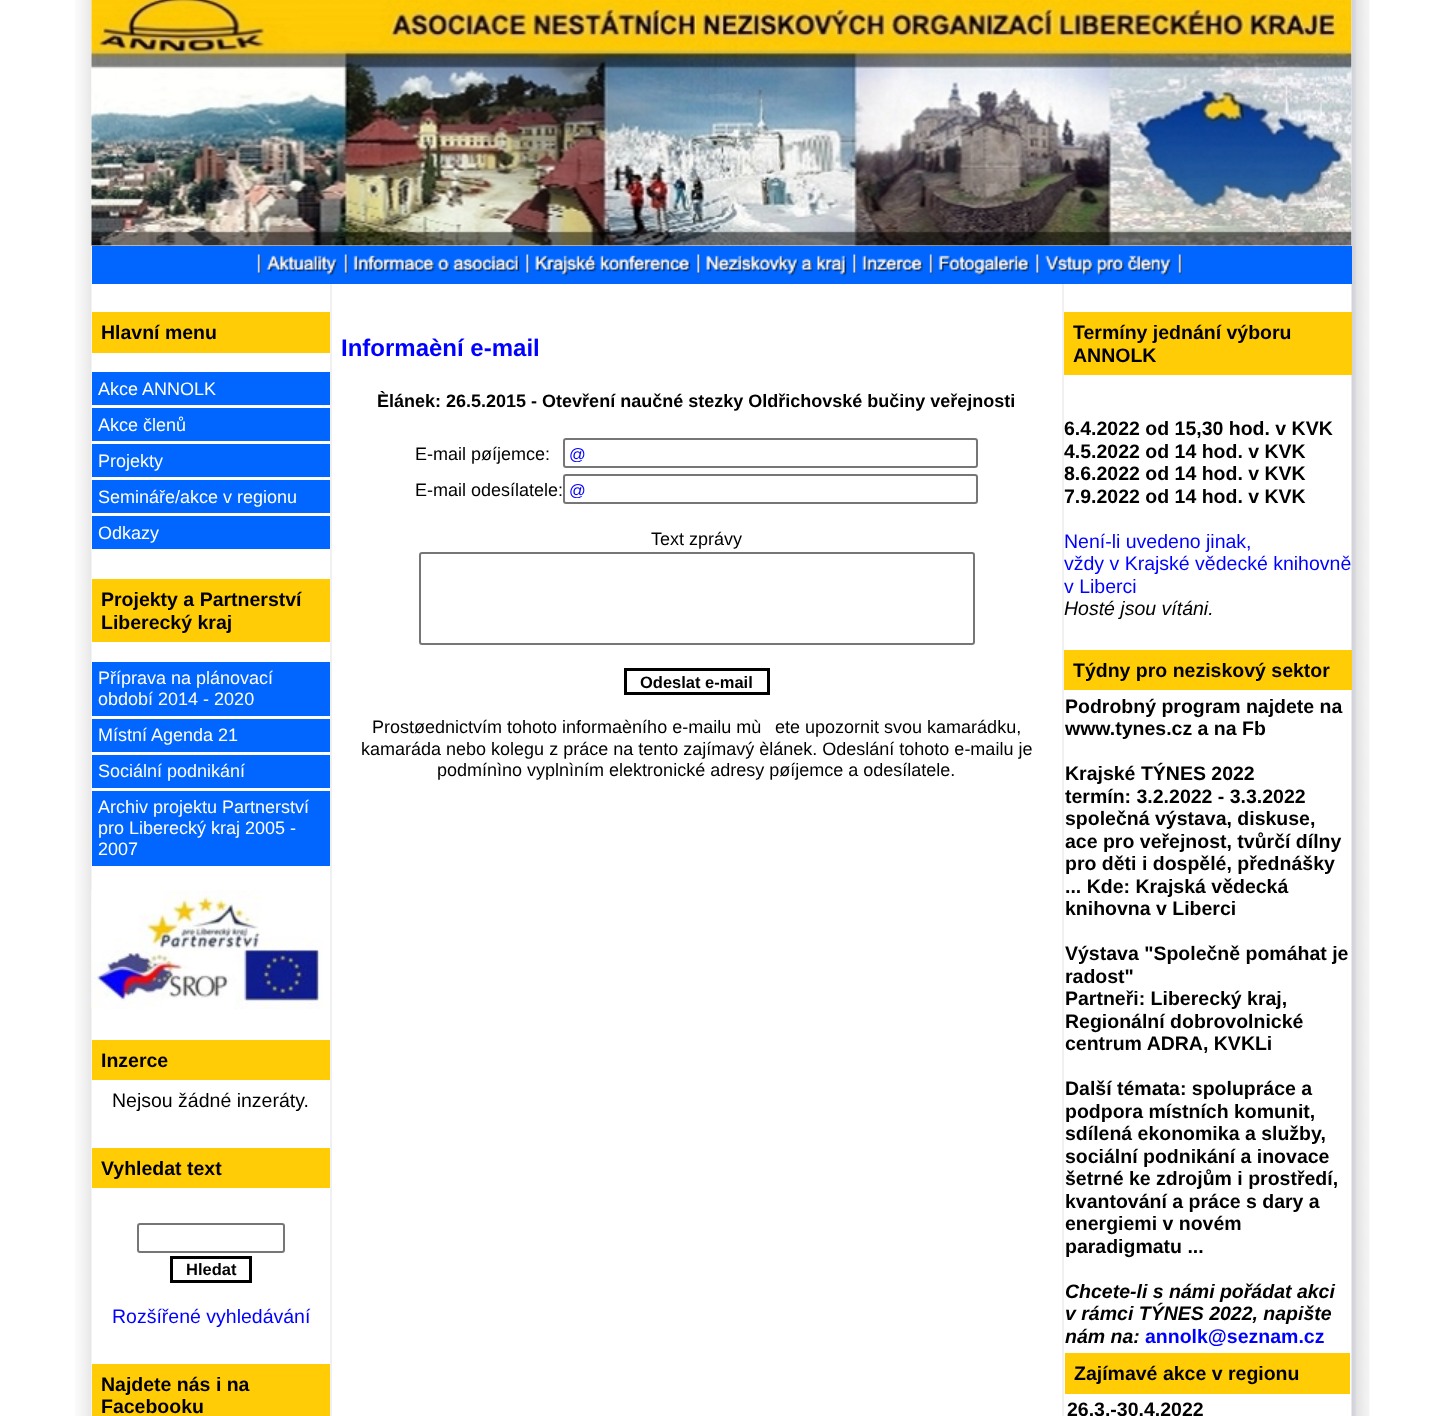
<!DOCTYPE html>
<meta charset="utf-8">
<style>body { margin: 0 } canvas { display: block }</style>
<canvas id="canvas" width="1441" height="1416"></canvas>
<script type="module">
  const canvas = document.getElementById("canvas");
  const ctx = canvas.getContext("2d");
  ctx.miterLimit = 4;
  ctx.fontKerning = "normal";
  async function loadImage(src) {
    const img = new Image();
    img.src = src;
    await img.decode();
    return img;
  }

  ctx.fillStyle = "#ffffff";
  ctx.fillRect(0, 0, 1441, 1416);
  ctx.drawImage(await loadImage("img1.png"), 75, 0, 17, 1416);
  ctx.drawImage(await loadImage("img2.png"), 91, 0, 1261, 246);
  ctx.drawImage(await loadImage("img3.png"), 1351, 0, 19, 1416);
  ctx.fillStyle = "#0066ff";
  ctx.fillRect(92, 246, 1260, 38);
  ctx.drawImage(await loadImage("img4.png"), 257, 254, 4, 21);
  ctx.drawImage(await loadImage("img5.png"), 266, 254, 82, 22);
  ctx.drawImage(await loadImage("img6.png"), 353, 254, 177, 21);
  ctx.drawImage(await loadImage("img7.png"), 529, 254, 172, 22);
  ctx.drawImage(await loadImage("img8.png"), 700, 254, 157, 22);
  ctx.drawImage(await loadImage("img9.png"), 856, 254, 77, 21);
  ctx.drawImage(await loadImage("img10.png"), 938, 254, 102, 22);
  ctx.drawImage(await loadImage("img11.png"), 1039, 254, 143, 22);
  ctx.fillStyle = "#f0f0f0";
  ctx.fillRect(330, 284, 2, 1132);
  ctx.fillStyle = "#ffcc06";
  ctx.fillRect(92, 312, 238, 41);
  ctx.font = "bold 19.5px Liberation Sans";
  ctx.fillStyle = "#000000";
  ctx.fillText("Hlavní menu", 101, 339);
  ctx.fillStyle = "#0066ff";
  ctx.fillRect(92, 372, 238, 33);
  ctx.font = "18px Liberation Sans";
  ctx.fillStyle = "#ffffff";
  ctx.fillText("Akce ANNOLK", 98, 395);
  ctx.fillStyle = "#0066ff";
  ctx.fillRect(92, 408, 238, 33);
  ctx.fillStyle = "#ffffff";
  ctx.fillText("Akce členů", 98, 431);
  ctx.fillStyle = "#0066ff";
  ctx.fillRect(92, 444, 238, 33);
  ctx.fillStyle = "#ffffff";
  ctx.fillText("Projekty", 98, 467);
  ctx.fillStyle = "#0066ff";
  ctx.fillRect(92, 480, 238, 33);
  ctx.fillStyle = "#ffffff";
  ctx.fillText("Semináře/akce v regionu", 98, 503);
  ctx.fillStyle = "#0066ff";
  ctx.fillRect(92, 516, 238, 33);
  ctx.fillStyle = "#ffffff";
  ctx.fillText("Odkazy", 98, 539);
  ctx.fillStyle = "#ffcc06";
  ctx.fillRect(92, 579, 238, 63);
  ctx.font = "bold 19.5px Liberation Sans";
  ctx.fillStyle = "#000000";
  ctx.fillText("Projekty a Partnerství", 101, 606);
  ctx.fillText("Liberecký kraj", 101, 629);
  ctx.fillStyle = "#0066ff";
  ctx.fillRect(92, 662, 238, 54);
  ctx.font = "18px Liberation Sans";
  ctx.fillStyle = "#ffffff";
  ctx.fillText("Příprava na plánovací", 98, 684);
  ctx.fillText("období 2014 - 2020", 98, 705);
  ctx.fillStyle = "#0066ff";
  ctx.fillRect(92, 719, 238, 33);
  ctx.fillStyle = "#ffffff";
  ctx.fillText("Místní Agenda 21", 98, 741);
  ctx.fillStyle = "#0066ff";
  ctx.fillRect(92, 755, 238, 33);
  ctx.fillStyle = "#ffffff";
  ctx.fillText("Sociální podnikání", 98, 777);
  ctx.fillStyle = "#0066ff";
  ctx.fillRect(92, 791, 238, 75);
  ctx.fillStyle = "#ffffff";
  ctx.fillText("Archiv projektu Partnerství", 98, 813);
  ctx.fillText("pro Liberecký kraj 2005 -", 98, 834);
  ctx.fillText("2007", 98, 855);
  ctx.drawImage(await loadImage("img12.png"), 91, 890, 232, 119);
  ctx.fillStyle = "#ffcc06";
  ctx.fillRect(92, 1040, 238, 40);
  ctx.font = "bold 19.5px Liberation Sans";
  ctx.fillStyle = "#000000";
  ctx.fillText("Inzerce", 101, 1067);
  ctx.font = "19.5px Liberation Sans";
  ctx.fillText("Nejsou žádné inzeráty.", 112, 1107);
  ctx.fillStyle = "#ffcc06";
  ctx.fillRect(92, 1148, 238, 40);
  ctx.font = "bold 19.5px Liberation Sans";
  ctx.fillStyle = "#000000";
  ctx.fillText("Vyhledat text", 101, 1175);
  ctx.beginPath();
  ctx.roundRect(138, 1224, 146, 28, 2);
  ctx.strokeStyle = "#767676";
  ctx.lineWidth = 2;
  ctx.stroke();
  ctx.strokeStyle = "#000000";
  ctx.lineWidth = 3;
  ctx.strokeRect(171.5, 1257.5, 79, 24);
  ctx.font = "bold 16.5px Liberation Sans";
  ctx.fillText("Hledat", 186, 1275);
  ctx.font = "19.5px Liberation Sans";
  ctx.fillStyle = "#0000ff";
  ctx.fillText("Rozšířené vyhledávání", 112, 1323);
  ctx.fillStyle = "#ffcc06";
  ctx.fillRect(92, 1364, 238, 52);
  ctx.font = "bold 19.5px Liberation Sans";
  ctx.fillStyle = "#000000";
  ctx.fillText("Najdete nás i na", 101, 1391);
  ctx.fillText("Facebooku", 101, 1413);
  ctx.font = "bold 24px Liberation Sans";
  ctx.fillStyle = "#0000ff";
  ctx.fillText("Informaèní e-mail", 341, 356);
  ctx.font = "bold 18px Liberation Sans";
  ctx.fillStyle = "#000000";
  ctx.fillText("Èlánek: 26.5.2015 - Otevření naučné stezky Oldřichovské bučiny veřejnosti", 377, 407);
  ctx.font = "18px Liberation Sans";
  ctx.fillText("E-mail pøíjemce:", 415, 460);
  ctx.beginPath();
  ctx.roundRect(564, 439, 413, 28, 2);
  ctx.strokeStyle = "#767676";
  ctx.lineWidth = 2;
  ctx.stroke();
  ctx.save();
  ctx.beginPath();
  ctx.rect(569, 444, 403, 18);
  ctx.clip();
  ctx.font = "16.5px Liberation Sans";
  ctx.fillStyle = "#0000ff";
  ctx.fillText("@", 569, 460);
  ctx.restore();
  ctx.fillText("E-mail odesílatele:", 415, 496);
  ctx.beginPath();
  ctx.roundRect(564, 475, 413, 28, 2);
  ctx.stroke();
  ctx.save();
  ctx.beginPath();
  ctx.rect(569, 480, 403, 18);
  ctx.clip();
  ctx.font = "16.5px Liberation Sans";
  ctx.fillStyle = "#0000ff";
  ctx.fillText("@", 569, 496);
  ctx.restore();
  ctx.fillText("Text zprávy", 651, 545);
  ctx.beginPath();
  ctx.roundRect(420, 553, 554, 91, 2);
  ctx.stroke();
  ctx.strokeStyle = "#000000";
  ctx.lineWidth = 3;
  ctx.strokeRect(625.5, 669.5, 143, 24);
  ctx.font = "bold 16.5px Liberation Sans";
  ctx.fillText("Odeslat e-mail", 640, 688);
  ctx.font = "18px Liberation Sans";
  ctx.fillText("Prostøednictvím tohoto informaèního e-mailu mù", 372, 733);
  ctx.fillText("ete upozornit svou kamarádku,", 775, 733);
  ctx.fillText("kamaráda nebo kolegu z práce na tento zajímavý èlánek. Odeslání tohoto e-mailu je", 361, 755);
  ctx.fillText("podmínìno vyplnìním elektronické adresy pøíjemce a odesílatele.", 437, 776);
  ctx.fillStyle = "#f0f0f0";
  ctx.fillRect(1062, 284, 2, 1132);
  ctx.fillStyle = "#ffcc06";
  ctx.fillRect(1064, 312, 288, 63);
  ctx.font = "bold 19.5px Liberation Sans";
  ctx.fillStyle = "#000000";
  ctx.fillText("Termíny jednání výboru", 1073, 339);
  ctx.fillText("ANNOLK", 1073, 362);
  ctx.fillText("6.4.2022 od 15,30 hod. v KVK", 1064, 435);
  ctx.fillText("4.5.2022 od 14 hod. v KVK", 1064, 458);
  ctx.fillText("8.6.2022 od 14 hod. v KVK", 1064, 480);
  ctx.fillText("7.9.2022 od 14 hod. v KVK", 1064, 503);
  ctx.font = "19.5px Liberation Sans";
  ctx.fillStyle = "#0000ff";
  ctx.fillText("Není-li uvedeno jinak,", 1064, 548);
  ctx.fillText("vždy v Krajské vědecké knihovně", 1064, 570);
  ctx.fillText("v Liberci", 1064, 593);
  ctx.font = "italic 19.5px Liberation Sans";
  ctx.fillStyle = "#000000";
  ctx.fillText("Hosté jsou vítáni.", 1064, 615);
  ctx.fillStyle = "#ffcc06";
  ctx.fillRect(1064, 650, 288, 40);
  ctx.font = "bold 19.5px Liberation Sans";
  ctx.fillStyle = "#000000";
  ctx.fillText("Týdny pro neziskový sektor", 1073, 677);
  ctx.fillText("Podrobný program najdete na", 1065, 713);
  ctx.fillText("www.tynes.cz a na Fb", 1065, 735);
  ctx.fillText("Krajské TÝNES 2022", 1065, 780);
  ctx.fillText("termín: 3.2.2022 - 3.3.2022", 1065, 803);
  ctx.fillText("společná výstava, diskuse,", 1065, 825);
  ctx.fillText("ace pro veřejnost, tvůrčí dílny", 1065, 848);
  ctx.fillText("pro děti i dospělé, přednášky", 1065, 870);
  ctx.fillText("... Kde: Krajská vědecká", 1065, 893);
  ctx.fillText("knihovna v Liberci", 1065, 915);
  ctx.fillText("Výstava \"Společně pomáhat je", 1065, 960);
  ctx.fillText("radost\"", 1065, 983);
  ctx.fillText("Partneři: Liberecký kraj,", 1065, 1005);
  ctx.fillText("Regionální dobrovolnické", 1065, 1028);
  ctx.fillText("centrum ADRA, KVKLi", 1065, 1050);
  ctx.fillText("Další témata: spolupráce a", 1065, 1095);
  ctx.fillText("podpora místních komunit,", 1065, 1118);
  ctx.fillText("sdílená ekonomika a služby,", 1065, 1140);
  ctx.fillText("sociální podnikání a inovace", 1065, 1163);
  ctx.fillText("šetrné ke zdrojům i prostředí,", 1065, 1185);
  ctx.fillText("kvantování a práce s dary a", 1065, 1208);
  ctx.fillText("energiemi v novém", 1065, 1230);
  ctx.fillText("paradigmatu ...", 1065, 1253);
  ctx.font = "italic bold 19.5px Liberation Sans";
  ctx.fillText("Chcete-li s námi pořádat akci", 1065, 1298);
  ctx.fillText("v rámci TÝNES 2022, napište", 1065, 1320);
  ctx.fillText("nám na:", 1065, 1343);
  ctx.font = "bold 19.5px Liberation Sans";
  ctx.fillStyle = "#0000ff";
  ctx.fillText("annolk@seznam.cz", 1145, 1343);
  ctx.fillStyle = "#ffcc06";
  ctx.fillRect(1065, 1353, 285, 41);
  ctx.fillStyle = "#000000";
  ctx.fillText("Zajímavé akce v regionu", 1074, 1380);
  ctx.fillText("26.3.-30.4.2022", 1067, 1416);
</script>
